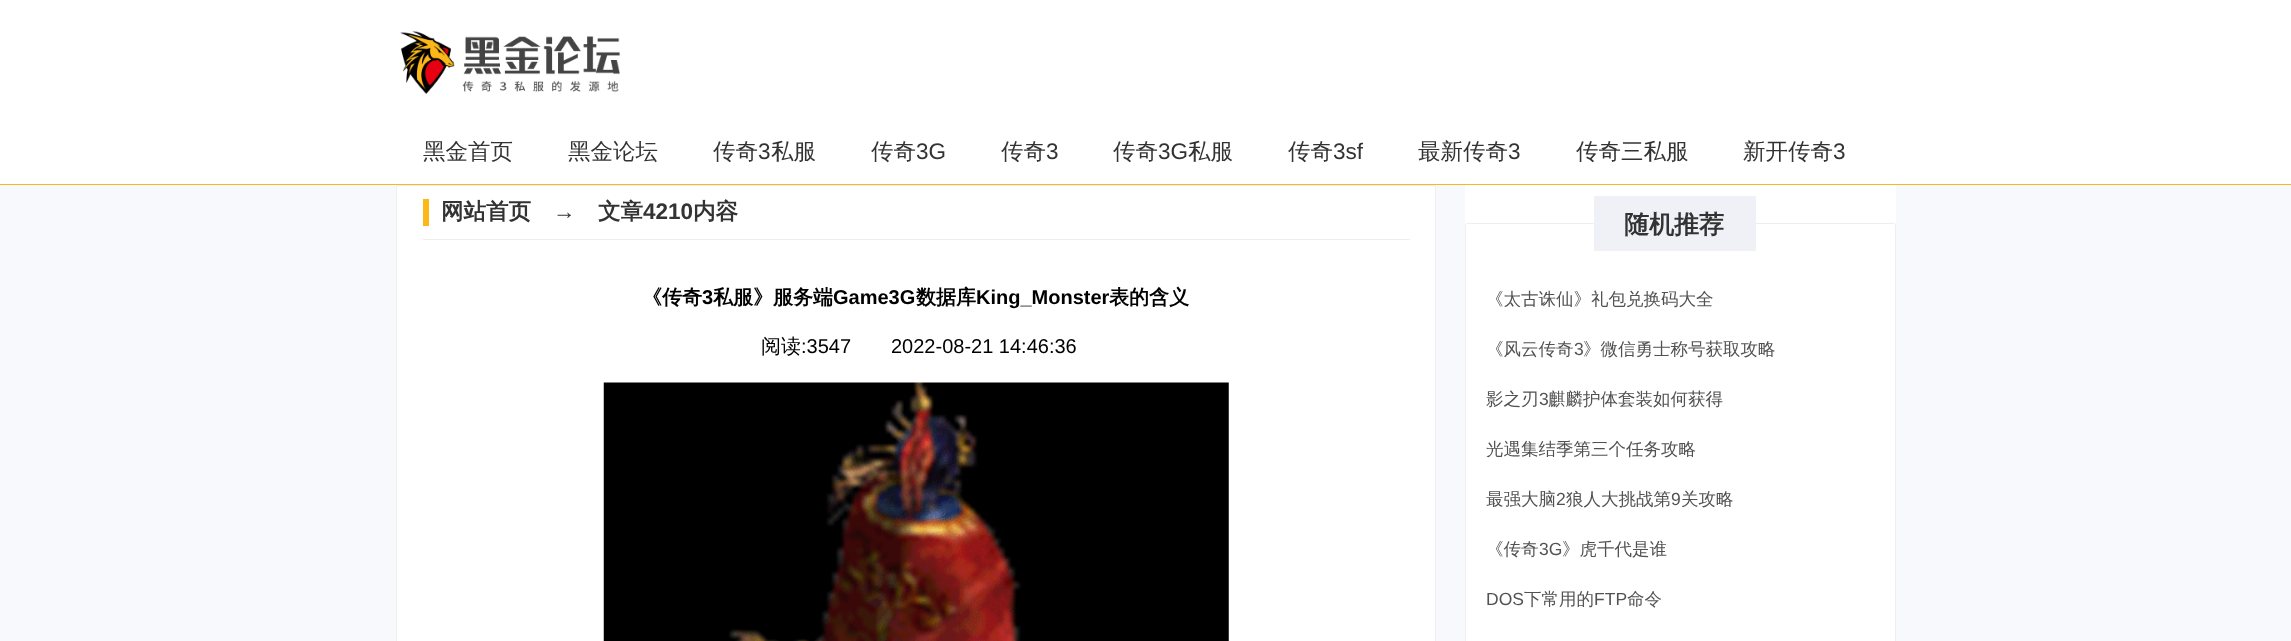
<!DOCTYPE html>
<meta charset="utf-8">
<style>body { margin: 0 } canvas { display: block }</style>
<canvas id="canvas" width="2291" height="641"></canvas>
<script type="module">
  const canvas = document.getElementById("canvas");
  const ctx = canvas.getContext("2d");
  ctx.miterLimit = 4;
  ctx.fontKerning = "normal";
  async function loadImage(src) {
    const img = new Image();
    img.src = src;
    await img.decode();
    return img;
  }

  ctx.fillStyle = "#f7f9fc";
  ctx.fillRect(0, 0, 2291, 641);
  ctx.fillStyle = "#ffffff";
  ctx.fillRect(0, 0, 2291, 184);
  ctx.fillStyle = "#fdb719";
  ctx.fillRect(0, 184, 2291, 1);
  ctx.drawImage(await loadImage("img1.png"), 400, 31, 220, 64);
  ctx.font = "500 22.5px WenQuanYi Zen Hei";
  ctx.fillStyle = "#333333";
  ctx.fillText("黑金首页", 423, 159);
  ctx.fillText("黑金论坛", 568, 159);
  ctx.fillText("传奇", 713, 159);
  ctx.font = "22.5px Liberation Sans";
  ctx.fillText("3", 758, 159);
  ctx.font = "500 22.5px WenQuanYi Zen Hei";
  ctx.fillText("私服", 771, 159);
  ctx.fillText("传奇", 871, 159);
  ctx.font = "22.5px Liberation Sans";
  ctx.fillText("3G", 916, 159);
  ctx.font = "500 22.5px WenQuanYi Zen Hei";
  ctx.fillText("传奇", 1001, 159);
  ctx.font = "22.5px Liberation Sans";
  ctx.fillText("3", 1046, 159);
  ctx.font = "500 22.5px WenQuanYi Zen Hei";
  ctx.fillText("传奇", 1113, 159);
  ctx.font = "22.5px Liberation Sans";
  ctx.fillText("3G", 1158, 159);
  ctx.font = "500 22.5px WenQuanYi Zen Hei";
  ctx.fillText("私服", 1188, 159);
  ctx.fillText("传奇", 1288, 159);
  ctx.font = "22.5px Liberation Sans";
  ctx.fillText("3sf", 1333, 159);
  ctx.font = "500 22.5px WenQuanYi Zen Hei";
  ctx.fillText("最新传奇", 1418, 159);
  ctx.font = "22.5px Liberation Sans";
  ctx.fillText("3", 1508, 159);
  ctx.font = "500 22.5px WenQuanYi Zen Hei";
  ctx.fillText("传奇三私服", 1576, 159);
  ctx.fillText("新开传奇", 1743, 159);
  ctx.font = "22.5px Liberation Sans";
  ctx.fillText("3", 1833, 159);
  ctx.fillStyle = "#ffffff";
  ctx.beginPath();
  ctx.roundRect(396.5, 185.5, 1039, 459, 2);
  ctx.fill();
  ctx.strokeStyle = "#eeeeee";
  ctx.stroke();
  ctx.fillStyle = "#eeeeee";
  ctx.fillRect(423, 239, 987, 1);
  ctx.fillStyle = "#fdb719";
  ctx.fillRect(423, 199, 6, 27);
  ctx.font = "bold 22.5px WenQuanYi Zen Hei";
  ctx.fillStyle = "#333333";
  ctx.fillText("网站首页", 441, 219);
  ctx.font = "bold 22.5px Liberation Sans";
  ctx.fillText("→", 553, 219);
  ctx.font = "bold 22.5px WenQuanYi Zen Hei";
  ctx.fillText("文章", 598, 219);
  ctx.font = "bold 22.5px Liberation Sans";
  ctx.fillText("4210", 643, 219);
  ctx.font = "bold 22.5px WenQuanYi Zen Hei";
  ctx.fillText("内容", 693, 219);
  ctx.font = "bold 20px WenQuanYi Zen Hei";
  ctx.fillStyle = "#000000";
  ctx.fillText("《传奇", 642, 304);
  ctx.font = "bold 20px Liberation Sans";
  ctx.fillText("3", 702, 304);
  ctx.font = "bold 20px WenQuanYi Zen Hei";
  ctx.fillText("私服》服务端", 713, 304);
  ctx.font = "bold 20px Liberation Sans";
  ctx.fillText("Game3G", 833, 304);
  ctx.font = "bold 20px WenQuanYi Zen Hei";
  ctx.fillText("数据库", 916, 304);
  ctx.font = "bold 20px Liberation Sans";
  ctx.fillText("King_Monster", 976, 304);
  ctx.font = "bold 20px WenQuanYi Zen Hei";
  ctx.fillText("表的含义", 1109, 304);
  ctx.font = "500 20px WenQuanYi Zen Hei";
  ctx.fillText("阅读", 761, 353);
  ctx.font = "20px Liberation Sans";
  ctx.fillText(":3547", 801, 353);
  ctx.fillText("2022-08-21 14:46:36", 891, 353);
  ctx.drawImage(await loadImage("img2.png"), 603, 382, 626, 259);
  ctx.fillStyle = "#ffffff";
  ctx.beginPath();
  ctx.roundRect(1465, 185, 431, 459, 2.5);
  ctx.fill();
  ctx.beginPath();
  ctx.roundRect(1465.5, 223.5, 430, 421, 2);
  ctx.stroke();
  ctx.fillStyle = "#f0f1f7";
  ctx.fillRect(1594, 196, 162, 55);
  ctx.font = "bold 25px WenQuanYi Zen Hei";
  ctx.fillStyle = "#333333";
  ctx.fillText("随机推荐", 1624, 233);
  ctx.font = "500 17.5px WenQuanYi Zen Hei";
  ctx.fillStyle = "#525252";
  ctx.fillText("《太古诛仙》礼包兑换码大全", 1486, 305);
  ctx.fillText("《风云传奇", 1486, 355);
  ctx.font = "17.5px Liberation Sans";
  ctx.fillText("3", 1574, 355);
  ctx.font = "500 17.5px WenQuanYi Zen Hei";
  ctx.fillText("》微信勇士称号获取攻略", 1583, 355);
  ctx.fillText("影之刃", 1486, 405);
  ctx.font = "17.5px Liberation Sans";
  ctx.fillText("3", 1539, 405);
  ctx.font = "500 17.5px WenQuanYi Zen Hei";
  ctx.fillText("麒麟护体套装如何获得", 1548, 405);
  ctx.fillText("光遇集结季第三个任务攻略", 1486, 455);
  ctx.fillText("最强大脑", 1486, 505);
  ctx.font = "17.5px Liberation Sans";
  ctx.fillText("2", 1556, 505);
  ctx.font = "500 17.5px WenQuanYi Zen Hei";
  ctx.fillText("狼人大挑战第", 1566, 505);
  ctx.font = "17.5px Liberation Sans";
  ctx.fillText("9", 1671, 505);
  ctx.font = "500 17.5px WenQuanYi Zen Hei";
  ctx.fillText("关攻略", 1681, 505);
  ctx.fillText("《传奇", 1486, 555);
  ctx.font = "17.5px Liberation Sans";
  ctx.fillText("3G", 1539, 555);
  ctx.font = "500 17.5px WenQuanYi Zen Hei";
  ctx.fillText("》虎千代是谁", 1562, 555);
  ctx.font = "17.5px Liberation Sans";
  ctx.fillText("DOS", 1486, 605);
  ctx.font = "500 17.5px WenQuanYi Zen Hei";
  ctx.fillText("下常用的", 1524, 605);
  ctx.font = "17.5px Liberation Sans";
  ctx.fillText("FTP", 1594, 605);
  ctx.font = "500 17.5px WenQuanYi Zen Hei";
  ctx.fillText("命令", 1627, 605);
</script>
